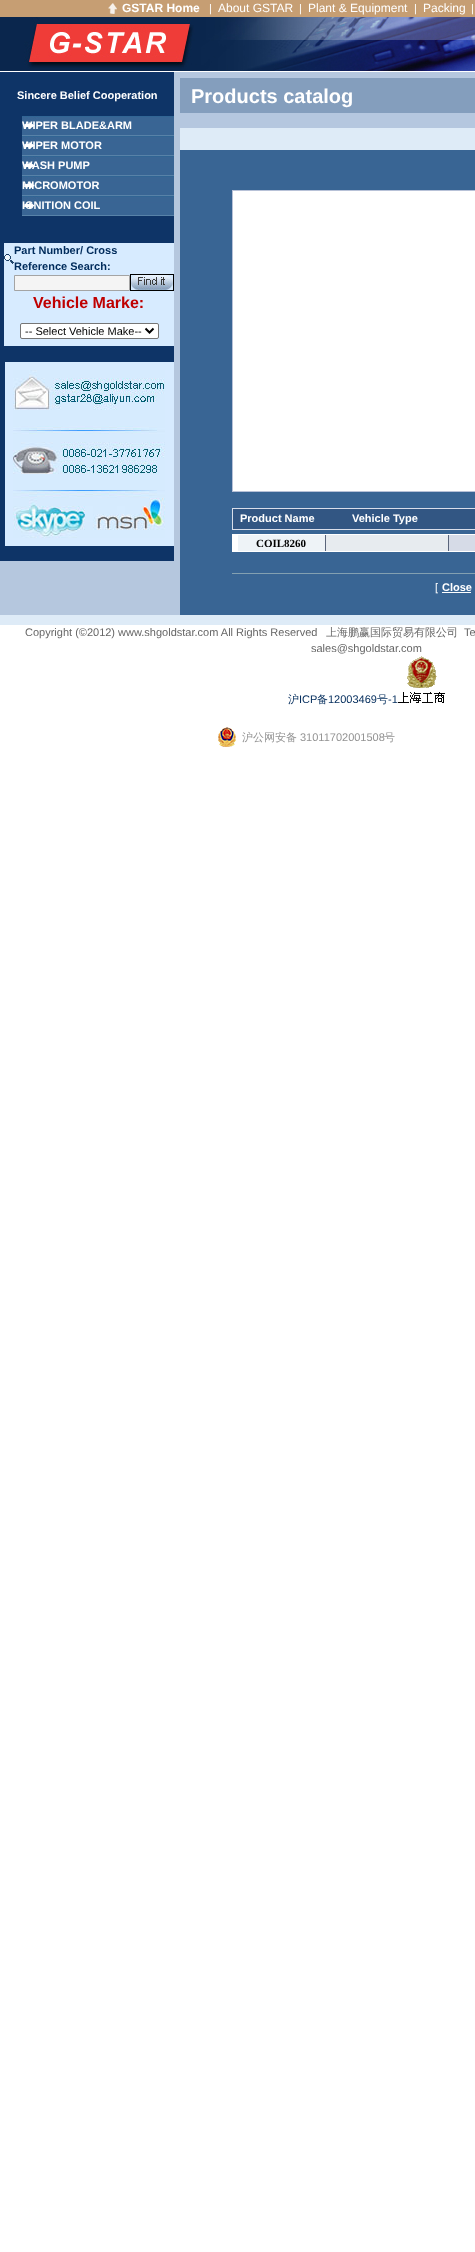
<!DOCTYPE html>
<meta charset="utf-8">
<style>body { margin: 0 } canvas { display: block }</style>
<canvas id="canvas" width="475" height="2252"></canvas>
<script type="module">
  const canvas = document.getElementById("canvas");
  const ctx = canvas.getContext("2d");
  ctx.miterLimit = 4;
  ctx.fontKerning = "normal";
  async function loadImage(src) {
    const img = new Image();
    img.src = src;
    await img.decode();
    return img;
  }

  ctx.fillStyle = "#ffffff";
  ctx.fillRect(0, 0, 475, 2252);
  ctx.fillStyle = "#c69e73";
  ctx.fillRect(0, 0, 475, 17);
  ctx.drawImage(await loadImage("img1.png"), 108, 3, 9, 11);
  ctx.font = "bold 12px Liberation Sans";
  ctx.fillStyle = "#ffffff";
  ctx.fillText("GSTAR Home", 122, 12);
  ctx.font = "11px Liberation Sans";
  ctx.fillText("|", 209, 12);
  ctx.font = "12px Liberation Sans";
  ctx.fillText("About GSTAR", 218, 12);
  ctx.font = "11px Liberation Sans";
  ctx.fillText("|", 299, 12);
  ctx.font = "12px Liberation Sans";
  ctx.fillText("Plant & Equipment", 308, 12);
  ctx.font = "11px Liberation Sans";
  ctx.fillText("|", 414, 12);
  ctx.font = "12px Liberation Sans";
  ctx.fillText("Packing", 423, 12);
  ctx.font = "11px Liberation Sans";
  ctx.fillText("|", 471, 12);
  ctx.drawImage(await loadImage("img2.png"), 0, 17, 195, 54);
  ctx.drawImage(await loadImage("img3.png"), 195, 17, 280, 54);
  ctx.fillStyle = "#b5c7de";
  ctx.fillRect(0, 72, 180, 543);
  ctx.fillStyle = "#0f3468";
  ctx.fillRect(0, 72, 174, 3);
  ctx.fillStyle = "#0e3467";
  ctx.fillRect(0, 75, 174, 168);
  ctx.font = "bold 11px Liberation Sans";
  ctx.fillStyle = "#ffffff";
  ctx.fillText("Sincere Belief Cooperation", 17, 99);
  ctx.drawImage(await loadImage("img4.png"), 22, 116, 152, 20);
  ctx.fillText("WIPER BLADE&ARM", 22, 129);
  ctx.drawImage(await loadImage("img4.png"), 22, 136, 152, 20);
  ctx.fillText("WIPER MOTOR", 22, 149);
  ctx.drawImage(await loadImage("img4.png"), 22, 156, 152, 20);
  ctx.fillText("WASH PUMP", 22, 169);
  ctx.drawImage(await loadImage("img4.png"), 22, 176, 152, 20);
  ctx.fillText("MICROMOTOR", 22, 189);
  ctx.drawImage(await loadImage("img4.png"), 22, 196, 152, 20);
  ctx.fillText("IGNITION COIL", 22, 209);
  ctx.fillStyle = "#0e3467";
  ctx.fillRect(0, 243, 4, 103);
  ctx.fillStyle = "#d7ebff";
  ctx.fillRect(4, 243, 170, 103);
  ctx.drawImage(await loadImage("img5.png"), 4, 254, 10, 10);
  ctx.fillStyle = "#002b5b";
  ctx.fillText("Part Number/ Cross", 14, 254);
  ctx.fillText("Reference Search:", 14, 270);
  ctx.fillStyle = "#f4f4f4";
  ctx.beginPath();
  ctx.rect(14.5, 275.5, 115, 15);
  ctx.fill();
  ctx.strokeStyle = "#a4a4a4";
  ctx.stroke();
  ctx.strokeStyle = "#000000";
  ctx.strokeRect(130.5, 274.5, 43, 16);
  ctx.drawImage(await loadImage("img6.png"), 131, 275, 42, 15);
  ctx.font = "bold 16px Liberation Sans";
  ctx.fillStyle = "#bf0000";
  ctx.fillText("Vehicle Marke:", 33, 308);
  ctx.fillStyle = "#ffffff";
  ctx.beginPath();
  ctx.roundRect(20.5, 323.5, 138, 15, 1.5);
  ctx.fill();
  ctx.strokeStyle = "#767676";
  ctx.stroke();
  ctx.beginPath();
  ctx.moveTo(145.5, 328.5);
  ctx.lineTo(149.5, 332.5);
  ctx.lineTo(153.5, 328.5);
  ctx.strokeStyle = "#000000";
  ctx.lineWidth = 2;
  ctx.stroke();
  ctx.font = "11px Liberation Sans";
  ctx.fillStyle = "#000000";
  ctx.fillText("-- Select Vehicle Make--", 25, 335);
  ctx.fillStyle = "#0e3467";
  ctx.fillRect(0, 346, 174, 16);
  ctx.fillRect(0, 362, 5, 184);
  ctx.fillStyle = "#d7ebff";
  ctx.fillRect(5, 362, 169, 184);
  ctx.drawImage(await loadImage("img7.png"), 13, 370, 152, 168);
  ctx.fillStyle = "#0e3467";
  ctx.fillRect(0, 546, 174, 15);
  ctx.fillStyle = "#396594";
  ctx.fillRect(180, 150, 295, 465);
  ctx.fillStyle = "#b5c7df";
  ctx.fillRect(180, 72, 295, 6);
  ctx.fillStyle = "#849ebd";
  ctx.fillRect(180, 78, 295, 35);
  ctx.font = "bold 20px Liberation Sans";
  ctx.fillStyle = "#ffffff";
  ctx.fillText("Products catalog", 191, 103);
  ctx.fillStyle = "#b5c7df";
  ctx.fillRect(180, 113, 295, 15);
  ctx.fillStyle = "#deebf7";
  ctx.fillRect(180, 128, 295, 22);
  ctx.fillStyle = "#b7c1d7";
  ctx.fillRect(232, 190, 243, 302);
  ctx.fillStyle = "#ffffff";
  ctx.fillRect(233, 191, 242, 300);
  ctx.fillStyle = "#d9deea";
  ctx.fillRect(232, 508, 243, 22);
  ctx.fillStyle = "#325683";
  ctx.fillRect(233, 509, 242, 20);
  ctx.font = "bold 11px Liberation Sans";
  ctx.fillStyle = "#ffffff";
  ctx.fillText("Product Name", 240, 522);
  ctx.fillText("Vehicle Type", 352, 522);
  ctx.fillRect(232, 534, 243, 18);
  ctx.fillStyle = "#5a657b";
  ctx.fillRect(325, 535, 124, 16);
  ctx.fillStyle = "#eef3f7";
  ctx.fillRect(238, 535, 87, 16);
  ctx.font = "bold 11px Liberation Serif";
  ctx.fillStyle = "#000000";
  ctx.fillText("COIL8260", 256, 547);
  ctx.fillStyle = "#e7ebef";
  ctx.fillRect(326, 535, 122, 16);
  ctx.fillStyle = "#d6dbe7";
  ctx.fillRect(449, 535, 26, 16);
  ctx.fillStyle = "#83a0b1";
  ctx.fillRect(232, 573, 243, 1);
  ctx.font = "11px Liberation Sans";
  ctx.fillStyle = "#ffffff";
  ctx.fillText("[", 435, 591);
  ctx.font = "bold 11px Liberation Sans";
  ctx.fillText("Close", 442, 591);
  ctx.fillRect(442, 592, 29, 1);
  ctx.fillStyle = "#deebf7";
  ctx.fillRect(0, 615, 475, 10);
  ctx.font = "11px Liberation Sans";
  ctx.fillStyle = "#666666";
  ctx.fillText("Copyright (©2012) www.shgoldstar.com All Rights Reserved", 25, 636);
  ctx.font = "500 11px WenQuanYi Zen Hei";
  ctx.fillText("上海鹏赢国际贸易有限公司", 326, 636);
  ctx.font = "11px Liberation Sans";
  ctx.fillText("Te", 464, 636);
  ctx.fillText("sales@shgoldstar.com", 311, 652);
  ctx.font = "500 11px WenQuanYi Zen Hei";
  ctx.fillStyle = "#002b5b";
  ctx.fillText("沪", 288, 703);
  ctx.font = "11px Liberation Sans";
  ctx.fillText("ICP", 299, 703);
  ctx.font = "500 11px WenQuanYi Zen Hei";
  ctx.fillText("备", 317, 703);
  ctx.font = "11px Liberation Sans";
  ctx.fillText("12003469", 328, 703);
  ctx.font = "500 11px WenQuanYi Zen Hei";
  ctx.fillText("号", 377, 703);
  ctx.font = "11px Liberation Sans";
  ctx.fillText("-1", 388, 703);
  ctx.drawImage(await loadImage("img8.png"), 398, 656, 47, 47);
  ctx.drawImage(await loadImage("img9.png"), 218, 727, 18, 20);
  ctx.font = "500 11px WenQuanYi Zen Hei";
  ctx.fillStyle = "#939393";
  ctx.fillText("沪公网安备", 242, 741);
  ctx.font = "11px Liberation Sans";
  ctx.fillText("31011702001508", 300, 741);
  ctx.font = "500 11px WenQuanYi Zen Hei";
  ctx.fillText("号", 384, 741);
</script>
